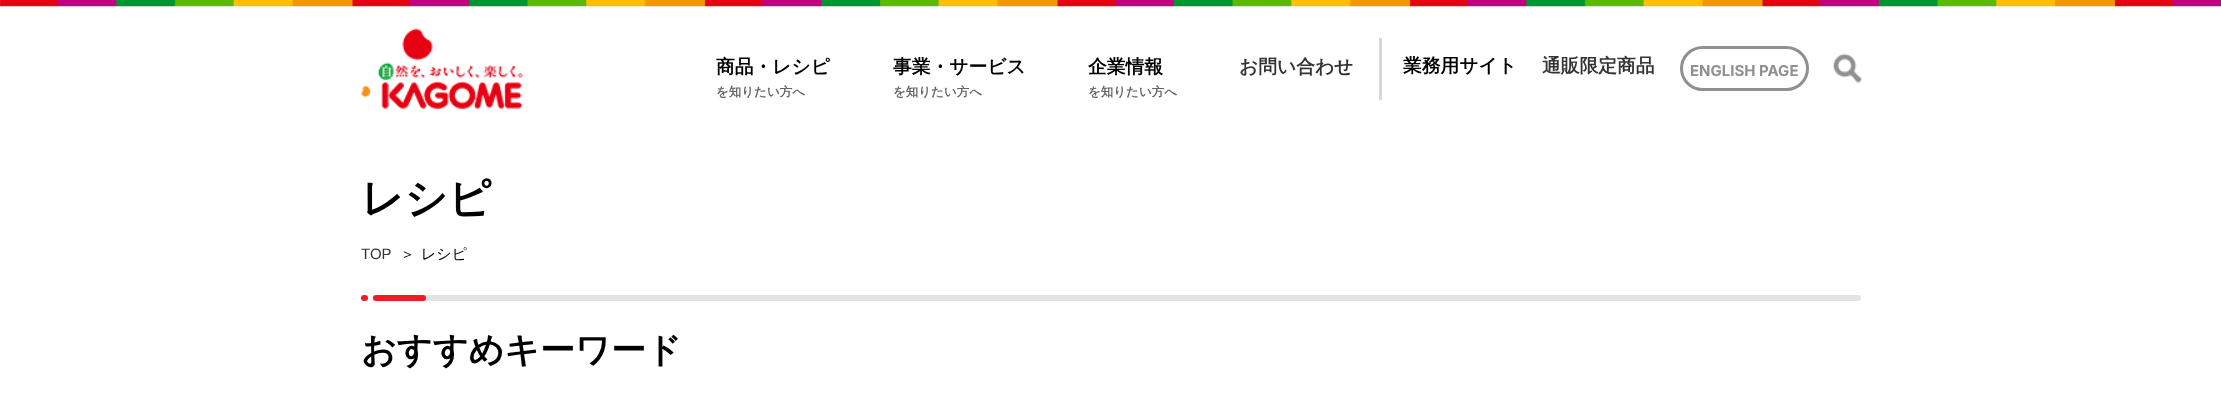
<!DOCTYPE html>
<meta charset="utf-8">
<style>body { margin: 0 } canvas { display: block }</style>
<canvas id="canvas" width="2221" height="419"></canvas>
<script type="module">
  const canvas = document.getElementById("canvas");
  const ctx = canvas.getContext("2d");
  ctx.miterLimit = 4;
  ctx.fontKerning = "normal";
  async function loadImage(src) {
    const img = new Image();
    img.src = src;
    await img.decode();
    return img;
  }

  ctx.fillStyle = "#ffffff";
  ctx.fillRect(0, 0, 2221, 419);
  ctx.drawImage(await loadImage("img1.png"), 0, 0, 2221, 7);
  ctx.drawImage(await loadImage("img2.png"), 361, 28, 162, 81);
  ctx.font = "bold 18.75px WenQuanYi Zen Hei";
  ctx.fillStyle = "#000000";
  ctx.fillText("商品・レシピ", 716, 73);
  ctx.font = "bold 12.5px WenQuanYi Zen Hei";
  ctx.fillStyle = "#646464";
  ctx.fillText("を知りたい方へ", 716, 96);
  ctx.font = "bold 18.75px WenQuanYi Zen Hei";
  ctx.fillStyle = "#000000";
  ctx.fillText("事業・サービス", 893, 73);
  ctx.font = "bold 12.5px WenQuanYi Zen Hei";
  ctx.fillStyle = "#646464";
  ctx.fillText("を知りたい方へ", 893, 96);
  ctx.font = "bold 18.75px WenQuanYi Zen Hei";
  ctx.fillStyle = "#000000";
  ctx.fillText("企業情報", 1088, 73);
  ctx.font = "bold 12.5px WenQuanYi Zen Hei";
  ctx.fillStyle = "#646464";
  ctx.fillText("を知りたい方へ", 1088, 96);
  ctx.font = "bold 18.75px WenQuanYi Zen Hei";
  ctx.fillStyle = "#333333";
  ctx.fillText("お問い合わせ", 1239, 73);
  ctx.fillStyle = "#d8d8d8";
  ctx.fillRect(1379, 38, 3, 62);
  ctx.fillStyle = "#000000";
  ctx.fillText("業務用サイト", 1403, 72);
  ctx.fillStyle = "#333333";
  ctx.fillText("通販限定商品", 1542, 72);
  ctx.beginPath();
  ctx.roundRect(1681.5, 47.5, 126, 42, 21);
  ctx.strokeStyle = "#909090";
  ctx.lineWidth = 3;
  ctx.stroke();
  ctx.font = "bold 15px Inter";
  ctx.fillStyle = "#909090";
  ctx.fillText("ENGLISH PAGE", 1690, 76);
  ctx.drawImage(await loadImage("img3.png"), 1833, 53, 29, 30);
  ctx.font = "bold 42.5px WenQuanYi Zen Hei";
  ctx.fillStyle = "#000000";
  ctx.fillText("レシピ", 361, 213);
  ctx.font = "15px Liberation Sans";
  ctx.fillStyle = "#333333";
  ctx.fillText("TOP", 361, 259);
  ctx.font = "500 15px WenQuanYi Zen Hei";
  ctx.fillStyle = "#000000";
  ctx.fillText("＞", 400, 259);
  ctx.fillText("レシピ", 421, 259);
  ctx.fillStyle = "#ee1d23";
  ctx.beginPath();
  ctx.roundRect(361, 295, 7, 6, 3);
  ctx.fill();
  ctx.fillStyle = "#e4e4e4";
  ctx.beginPath();
  ctx.roundRect(373, 295, 1488, 6, 3);
  ctx.fill();
  ctx.fillStyle = "#ee1d23";
  ctx.beginPath();
  ctx.roundRect(373, 295, 53, 6, 3);
  ctx.fill();
  ctx.font = "bold 35px WenQuanYi Zen Hei";
  ctx.fillStyle = "#000000";
  ctx.fillText("おすすめキーワード", 361, 362);
</script>
